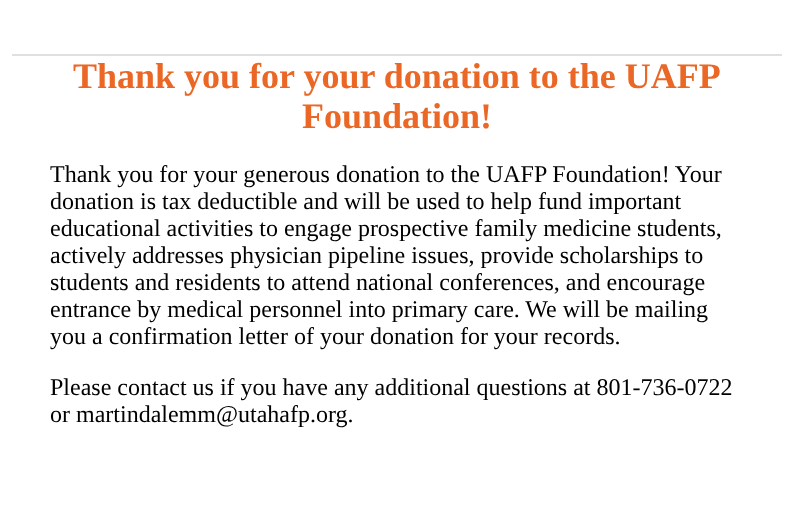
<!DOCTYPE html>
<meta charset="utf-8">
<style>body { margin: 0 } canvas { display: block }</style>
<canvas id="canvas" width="793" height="507"></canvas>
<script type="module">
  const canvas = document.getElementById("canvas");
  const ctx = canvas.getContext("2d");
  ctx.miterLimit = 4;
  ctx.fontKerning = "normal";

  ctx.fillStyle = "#ffffff";
  ctx.fillRect(0, 0, 793, 507);
  ctx.fillStyle = "#e0e0e0";
  ctx.fillRect(12, 54, 770, 2);
  ctx.font = "bold 36px Liberation Serif";
  ctx.fillStyle = "#ea6725";
  ctx.fillText("Thank you for your donation to the UAFP", 73, 88);
  ctx.fillText("Foundation!", 302, 128);
  ctx.font = "24px Liberation Serif";
  ctx.fillStyle = "#000000";
  ctx.fillText("Thank you for your generous donation to the UAFP Foundation! Your", 50, 182);
  ctx.fillText("donation is tax deductible and will be used to help fund important", 50, 209);
  ctx.fillText("educational activities to engage prospective family medicine students,", 50, 236);
  ctx.fillText("actively addresses physician pipeline issues, provide scholarships to", 50, 263);
  ctx.fillText("students and residents to attend national conferences, and encourage", 50, 290);
  ctx.fillText("entrance by medical personnel into primary care. We will be mailing", 50, 317);
  ctx.fillText("you a confirmation letter of your donation for your records.", 50, 344);
  ctx.fillText("Please contact us if you have any additional questions at 801-736-0722", 50, 395);
  ctx.fillText("or martindalemm@utahafp.org.", 50, 422);
</script>
